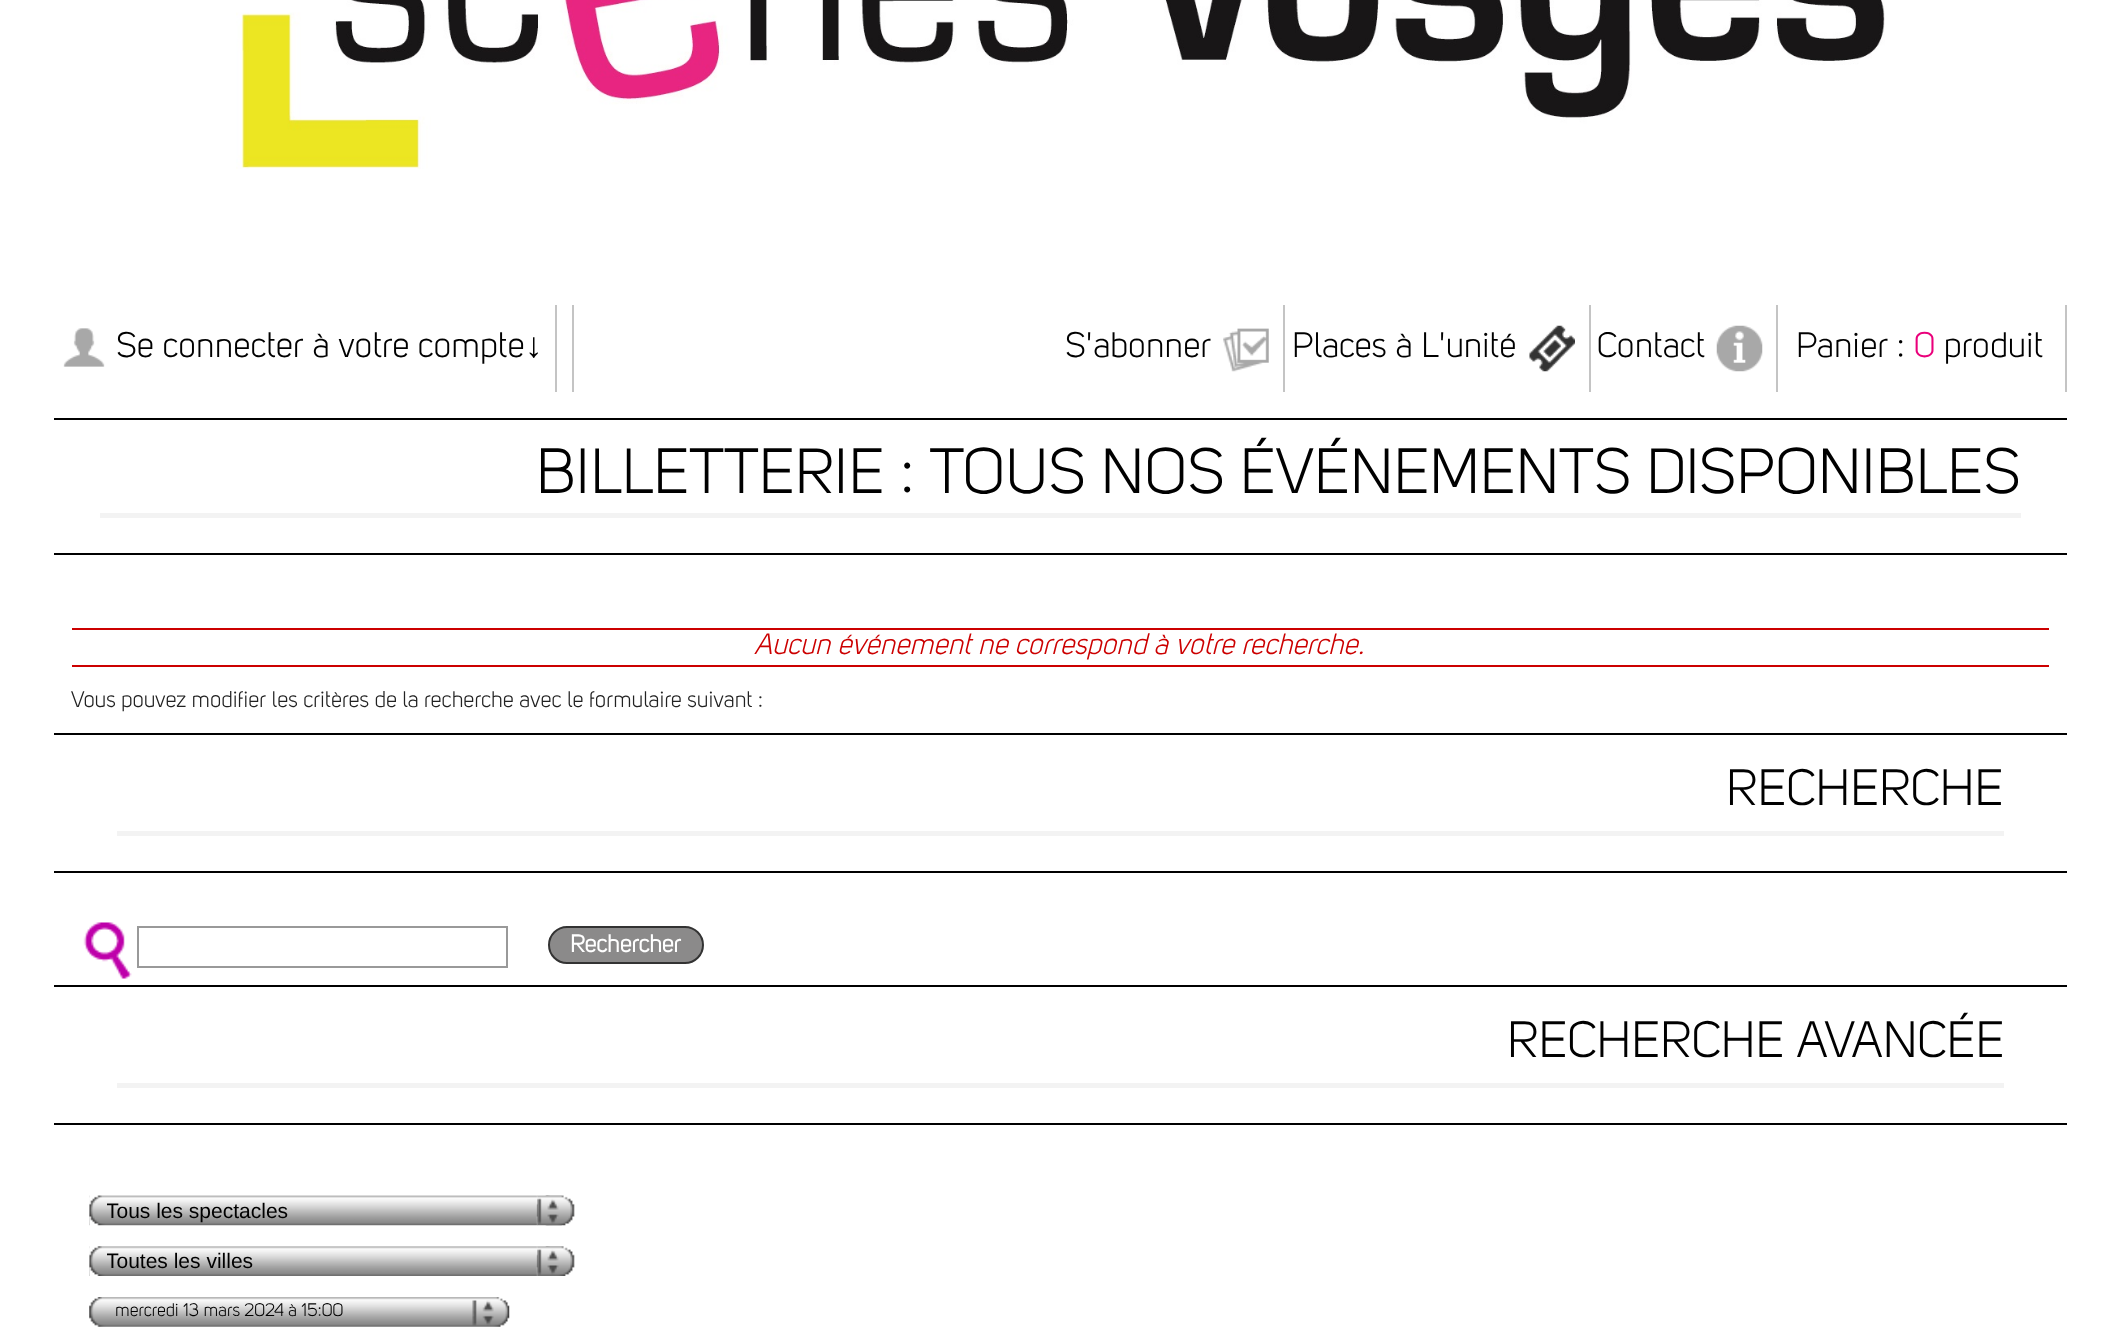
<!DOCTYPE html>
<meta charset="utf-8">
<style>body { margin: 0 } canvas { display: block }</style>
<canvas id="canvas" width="2118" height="1344"></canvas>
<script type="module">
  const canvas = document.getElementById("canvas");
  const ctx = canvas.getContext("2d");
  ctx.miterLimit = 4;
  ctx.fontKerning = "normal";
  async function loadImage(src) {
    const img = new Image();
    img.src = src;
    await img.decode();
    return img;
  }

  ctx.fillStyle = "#ffffff";
  ctx.fillRect(0, 0, 2118, 1344);
  ctx.drawImage(await loadImage("img1.png"), 236, 0, 1649, 169);
  ctx.fillStyle = "#c4c4c4";
  ctx.fillRect(555, 305, 2, 87);
  ctx.drawImage(await loadImage("img2.png"), 63, 328, 42, 39);
  ctx.font = "35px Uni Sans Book";
  ctx.fillStyle = "#000000";
  ctx.fillText("Se connecter à votre compte", 116, 357);
  ctx.font = "35px Liberation Sans";
  ctx.fillText("↓", 525, 357);
  ctx.fillStyle = "#c4c4c4";
  ctx.fillRect(572, 305, 2, 87);
  ctx.fillRect(1283, 305, 2, 87);
  ctx.font = "35px Uni Sans Book";
  ctx.fillStyle = "#000000";
  ctx.fillText("S'abonner", 1065, 357);
  ctx.drawImage(await loadImage("img3.png"), 1223, 328, 46, 44);
  ctx.fillStyle = "#c4c4c4";
  ctx.fillRect(1589, 305, 2, 87);
  ctx.fillStyle = "#000000";
  ctx.fillText("Places à L'unité", 1292, 357);
  ctx.drawImage(await loadImage("img4.png"), 1529, 325, 46, 47);
  ctx.fillStyle = "#c4c4c4";
  ctx.fillRect(1776, 305, 2, 87);
  ctx.fillStyle = "#000000";
  ctx.fillText("Contact", 1597, 357);
  ctx.drawImage(await loadImage("img5.png"), 1716, 325, 47, 47);
  ctx.fillStyle = "#c4c4c4";
  ctx.fillRect(2065, 305, 2, 87);
  ctx.fillStyle = "#000000";
  ctx.fillText("Panier :", 1796, 357);
  ctx.fillStyle = "#ea007b";
  ctx.fillText("0", 1914, 357);
  ctx.fillStyle = "#000000";
  ctx.fillText("produit", 1944, 357);
  ctx.save();
  ctx.beginPath();
  ctx.rect(54, 401, 2013, 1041);
  ctx.clip();
  ctx.strokeStyle = "#000000";
  ctx.lineWidth = 2;
  ctx.strokeRect(29, 419, 2063, 135);
  ctx.restore();
  ctx.font = "63px Uni Sans Book";
  ctx.fillText("BILLETTERIE : TOUS NOS ÉVÉNEMENTS DISPONIBLES", 536, 493);
  ctx.fillStyle = "#f3f3f3";
  ctx.fillRect(100, 513, 1921, 5);
  ctx.fillStyle = "#cc0000";
  ctx.fillRect(72, 628, 1977, 2);
  ctx.fillRect(72, 665, 1977, 2);
  ctx.font = "italic 29.1px Uni Sans Book";
  ctx.fillText("Aucun événement ne correspond à votre recherche.", 754, 654);
  ctx.font = "22.4px Uni Sans Book";
  ctx.fillStyle = "#222222";
  ctx.fillText("Vous pouvez modifier les critères de la recherche avec le formulaire suivant :", 71, 707);
  ctx.save();
  ctx.beginPath();
  ctx.rect(54, 590, 2013, 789);
  ctx.clip();
  ctx.strokeStyle = "#000000";
  ctx.lineWidth = 2;
  ctx.strokeRect(47, 734, 2028, 138);
  ctx.restore();
  ctx.font = "50.5px Uni Sans Book";
  ctx.fillStyle = "#000000";
  ctx.fillText("RECHERCHE", 1726, 805);
  ctx.fillStyle = "#f3f3f3";
  ctx.fillRect(117, 831, 1887, 5);
  ctx.drawImage(await loadImage("img6.png"), 83, 922, 49, 57);
  ctx.strokeStyle = "#999999";
  ctx.lineWidth = 2;
  ctx.strokeRect(138, 927, 369, 40);
  ctx.fillStyle = "#8b8a8a";
  ctx.beginPath();
  ctx.roundRect(549, 927, 154, 36, 18);
  ctx.fill();
  ctx.strokeStyle = "#333333";
  ctx.stroke();
  ctx.font = "bold 24px Uni Sans Book";
  ctx.fillStyle = "#ffffff";
  ctx.fillText("Rechercher", 570, 952);
  ctx.save();
  ctx.beginPath();
  ctx.rect(54, 590, 2013, 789);
  ctx.clip();
  ctx.strokeStyle = "#000000";
  ctx.strokeRect(47, 986, 2028, 138);
  ctx.restore();
  ctx.font = "50.5px Uni Sans Book";
  ctx.fillStyle = "#000000";
  ctx.fillText("RECHERCHE AVANCÉE", 1507, 1057);
  ctx.fillStyle = "#f3f3f3";
  ctx.fillRect(117, 1083, 1887, 5);
  ctx.drawImage(await loadImage("img7.png"), 89, 1195, 473, 31);
  ctx.save();
  ctx.beginPath();
  ctx.rect(107, 1197, 437, 30);
  ctx.clip();
  ctx.font = "21px Liberation Sans";
  ctx.fillStyle = "#000000";
  ctx.fillText("Tous les spectacles", 106, 1218);
  ctx.restore();
  ctx.drawImage(await loadImage("img8.png"), 537, 1195, 38, 31);
  ctx.drawImage(await loadImage("img9.png"), 89, 1246, 473, 30);
  ctx.save();
  ctx.beginPath();
  ctx.rect(107, 1248, 437, 30);
  ctx.clip();
  ctx.font = "21px Liberation Sans";
  ctx.fillStyle = "#000000";
  ctx.fillText("Toutes les villes", 106, 1268);
  ctx.restore();
  ctx.drawImage(await loadImage("img10.png"), 537, 1246, 38, 30);
  ctx.drawImage(await loadImage("img11.png"), 89, 1297, 421, 30);
  ctx.font = "17.9px Uni Sans Book";
  ctx.fillStyle = "#000000";
  ctx.fillText("mercredi 13 mars 2024 à 15:00", 115, 1316);
</script>
